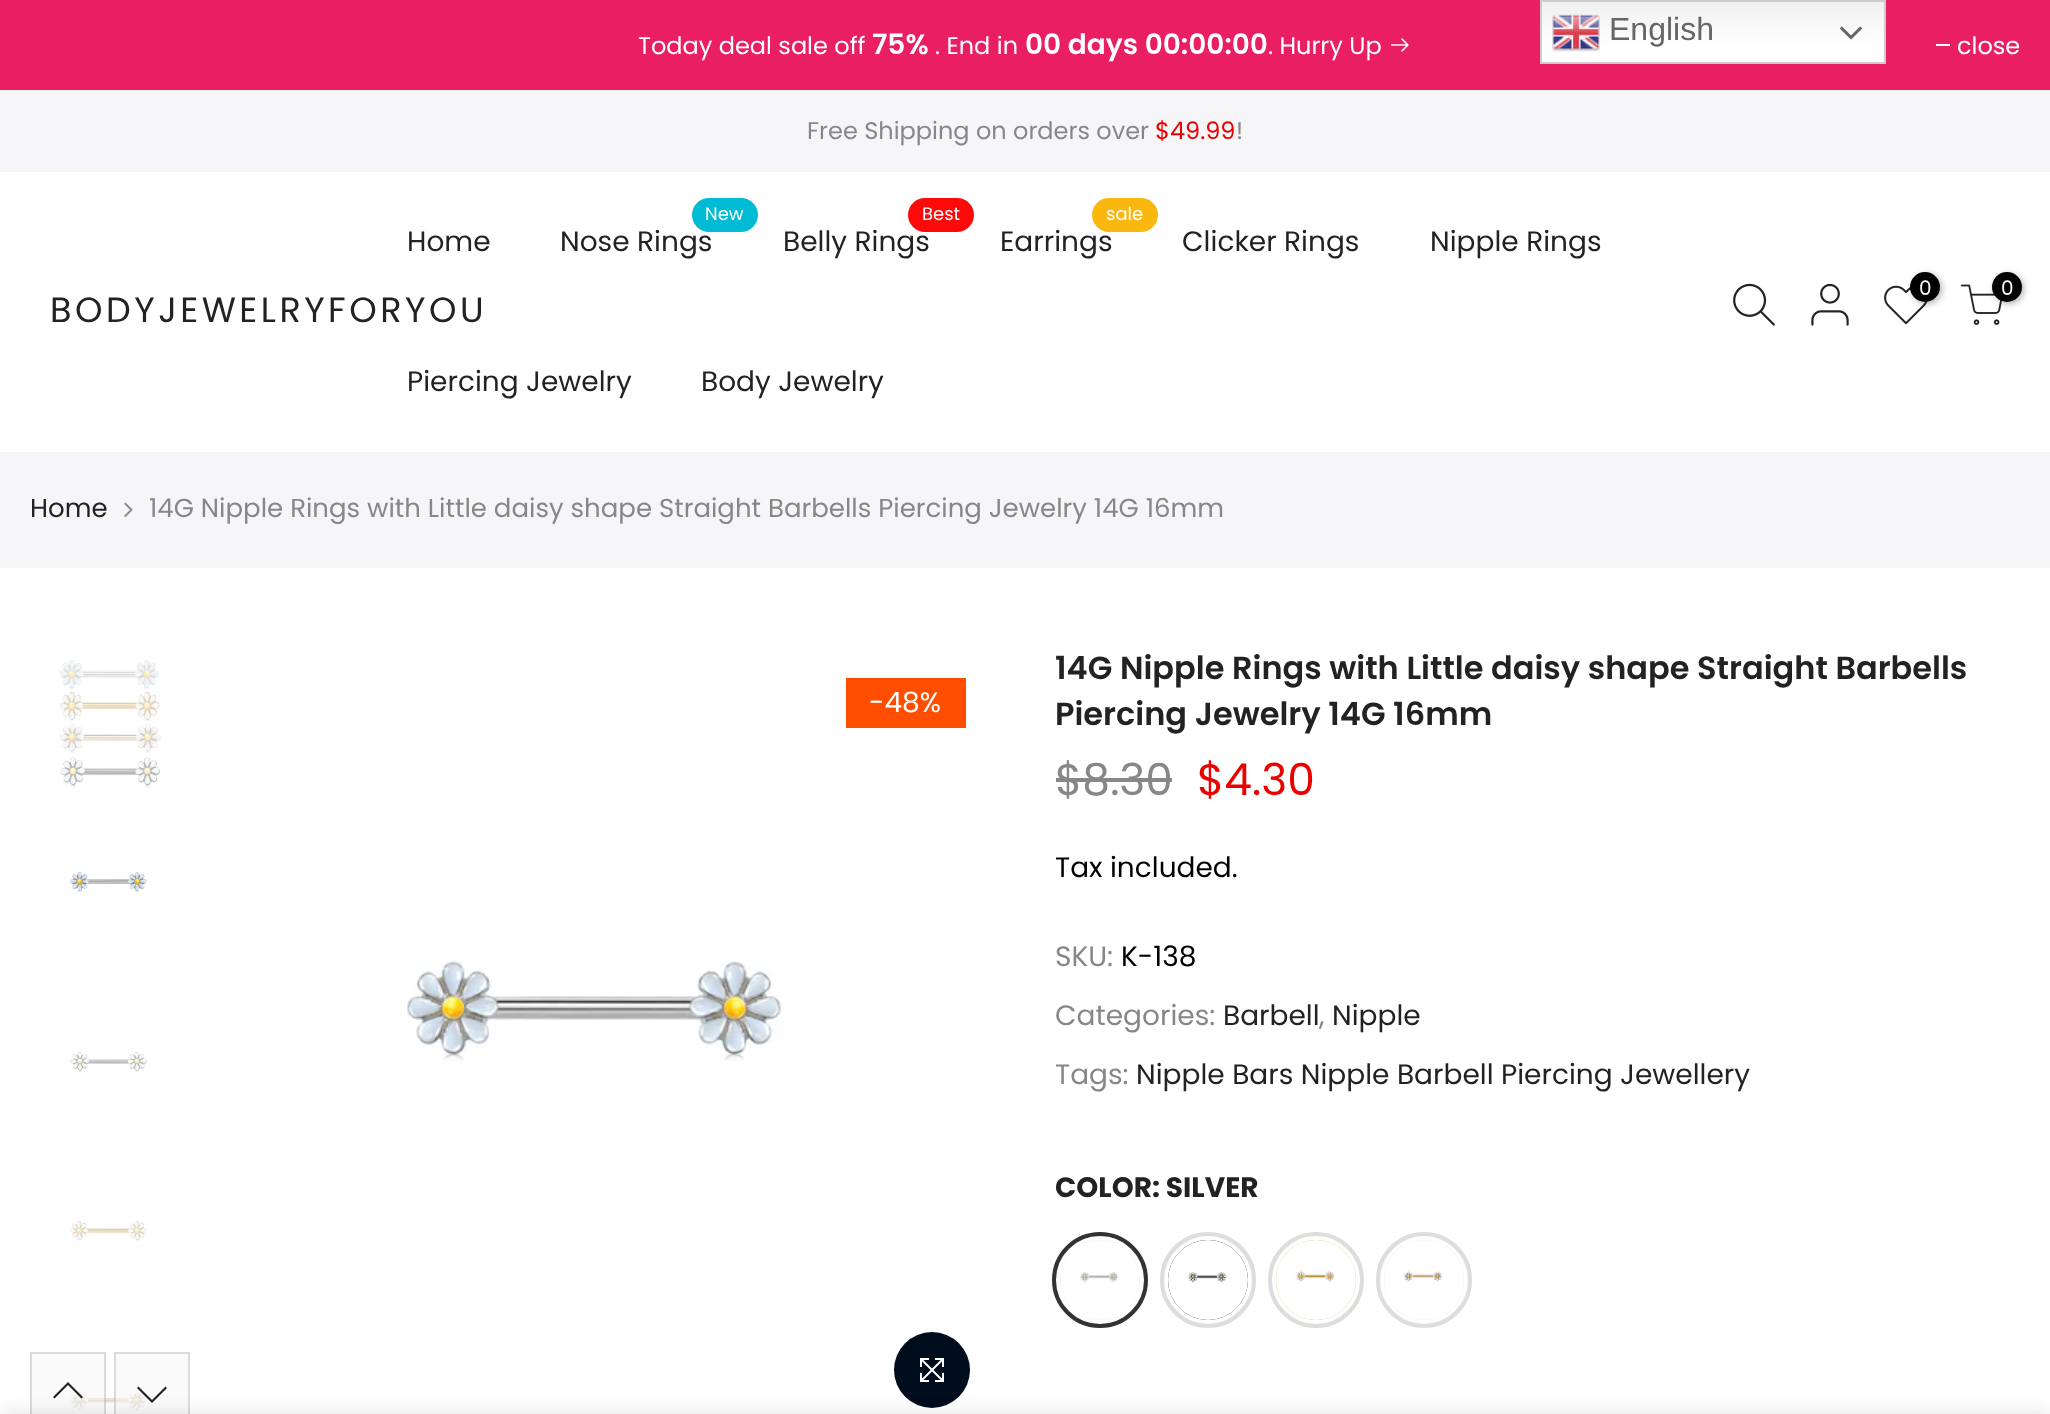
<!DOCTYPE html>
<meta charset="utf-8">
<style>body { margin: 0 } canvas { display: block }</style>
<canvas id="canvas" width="2050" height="1414"></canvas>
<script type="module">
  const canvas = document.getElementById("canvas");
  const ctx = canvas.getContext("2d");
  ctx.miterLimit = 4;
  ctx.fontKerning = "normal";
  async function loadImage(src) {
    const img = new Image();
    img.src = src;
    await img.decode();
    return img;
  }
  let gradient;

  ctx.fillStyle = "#ffffff";
  ctx.fillRect(0, 0, 2050, 1414);
  ctx.fillStyle = "#e91e63";
  ctx.fillRect(0, 0, 2050, 90);
  gradient = ctx.createLinearGradient(1713, 0, 1713, 64);
  gradient.addColorStop(0, "#efefef");
  gradient.addColorStop(0.7, "#ffffff");
  ctx.fillStyle = gradient;
  ctx.fillRect(1542, 2, 342, 60);
  ctx.strokeStyle = "#cccccc";
  ctx.lineWidth = 2;
  ctx.strokeRect(1541, 1, 344, 62);
  ctx.drawImage(await loadImage("img1.png"), 1552, 14, 48, 38);
  ctx.font = "32px Liberation Sans";
  ctx.fillStyle = "#666666";
  ctx.fillText("English", 1609, 40);
  ctx.drawImage(await loadImage("img2.png"), 1840, 26, 22, 14);
  ctx.font = "24px Poppins";
  ctx.fillStyle = "#ffffff";
  ctx.fillText("Today deal sale off", 638, 54);
  ctx.font = "600 28px Poppins";
  ctx.fillText("75%", 872, 54);
  ctx.font = "24px Poppins";
  ctx.fillText(". End in", 935, 54);
  ctx.font = "600 28px Poppins";
  ctx.fillText("00 days 00:00:00", 1025, 54);
  ctx.font = "24px Poppins";
  ctx.fillText(". Hurry Up", 1268, 54);
  ctx.drawImage(await loadImage("img3.png"), 1391, 38, 18, 14);
  ctx.fillRect(1936, 44, 14, 2);
  ctx.fillText("close", 1957, 54);
  ctx.fillStyle = "#f6f6f8";
  ctx.fillRect(0, 90, 2050, 82);
  ctx.fillStyle = "#878787";
  ctx.fillText("Free Shipping on orders over", 807, 139);
  ctx.fillStyle = "#ec0101";
  ctx.fillText("$49.99", 1155, 139);
  ctx.fillStyle = "#878787";
  ctx.fillText("!", 1236, 139);
  ctx.font = "28px Poppins";
  ctx.fillStyle = "#222222";
  ctx.fillText("Home", 407, 251);
  ctx.fillText("Nose Rings", 560, 251);
  ctx.fillStyle = "#01bad4";
  ctx.beginPath();
  ctx.roundRect(692, 198, 66, 34, 17);
  ctx.fill();
  ctx.font = "18px Poppins";
  ctx.fillStyle = "#ffffff";
  ctx.fillText("New", 705, 220);
  ctx.font = "28px Poppins";
  ctx.fillStyle = "#222222";
  ctx.fillText("Belly Rings", 783, 251);
  ctx.fillStyle = "#fc0909";
  ctx.beginPath();
  ctx.roundRect(908, 198, 66, 34, 17);
  ctx.fill();
  ctx.font = "18px Poppins";
  ctx.fillStyle = "#ffffff";
  ctx.fillText("Best", 922, 220);
  ctx.font = "28px Poppins";
  ctx.fillStyle = "#222222";
  ctx.fillText("Earrings", 1000, 251);
  ctx.fillStyle = "#f9b710";
  ctx.beginPath();
  ctx.roundRect(1092, 198, 66, 34, 17);
  ctx.fill();
  ctx.font = "18px Poppins";
  ctx.fillStyle = "#ffffff";
  ctx.fillText("sale", 1106, 220);
  ctx.font = "28px Poppins";
  ctx.fillStyle = "#222222";
  ctx.fillText("Clicker Rings", 1182, 251);
  ctx.fillText("Nipple Rings", 1430, 251);
  ctx.fillText("Piercing Jewelry", 407, 391);
  ctx.fillText("Body Jewelry", 701, 391);
  ctx.drawImage(await loadImage("img4.png"), 1733, 283, 42, 43);
  ctx.drawImage(await loadImage("img5.png"), 1811, 283, 38, 43);
  ctx.drawImage(await loadImage("img6.png"), 1884, 285, 44, 40);
  ctx.fillStyle = "rgba(0, 0, 0, 0.3)";
  ctx.filter = "blur(3px)";
  ctx.beginPath();
  ctx.roundRect(1912, 274, 30, 30, 15);
  ctx.fill();
  ctx.filter = "none";
  ctx.fillStyle = "#000000";
  ctx.beginPath();
  ctx.arc(1925, 287, 15, 0, Math.PI * 2);
  ctx.fill();
  ctx.font = "20px Poppins";
  ctx.fillStyle = "#ffffff";
  ctx.fillText("0", 1919, 295);
  ctx.drawImage(await loadImage("img7.png"), 1960, 284, 42, 41);
  ctx.fillStyle = "rgba(0, 0, 0, 0.3)";
  ctx.filter = "blur(3px)";
  ctx.beginPath();
  ctx.roundRect(1994, 274, 30, 30, 15);
  ctx.fill();
  ctx.filter = "none";
  ctx.fillStyle = "#000000";
  ctx.beginPath();
  ctx.arc(2007, 287, 15, 0, Math.PI * 2);
  ctx.fill();
  ctx.fillStyle = "#ffffff";
  ctx.fillText("0", 2001, 295);
  ctx.letterSpacing = "3.5px";
  ctx.font = "35px Poppins";
  ctx.fillStyle = "#222222";
  ctx.fillText("BODYJEWELRYFORYOU", 50, 322);
  ctx.fillStyle = "#f6f6f8";
  ctx.fillRect(0, 452, 2050, 116);
  ctx.letterSpacing = "0px";
  ctx.font = "26px Poppins";
  ctx.fillStyle = "#222222";
  ctx.fillText("Home", 30, 517);
  ctx.drawImage(await loadImage("img8.png"), 124, 502, 9, 15);
  ctx.fillStyle = "#878787";
  ctx.fillText("14G Nipple Rings with Little daisy shape Straight Barbells Piercing Jewelry 14G 16mm", 149, 517);
  ctx.drawImage(await loadImage("img9.png"), 59, 660, 102, 128);
  ctx.drawImage(await loadImage("img10.png"), 70, 872, 77, 20);
  ctx.drawImage(await loadImage("img11.png"), 70, 1052, 77, 20);
  ctx.drawImage(await loadImage("img12.png"), 70, 1221, 77, 20);
  ctx.drawImage(await loadImage("img13.png"), 69, 1391, 78, 20);
  ctx.fillStyle = "rgba(245, 245, 245, 0.5)";
  ctx.fillRect(30, 1352, 76, 62);
  ctx.strokeStyle = "rgba(0, 0, 0, 0.12)";
  ctx.strokeRect(31, 1353, 74, 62);
  ctx.fillStyle = "#222222";
  ctx.beginPath();
  ctx.moveTo(68, 1382);
  ctx.lineTo(53, 1397);
  ctx.lineTo(54.5, 1398.5);
  ctx.lineTo(68, 1385);
  ctx.lineTo(81.5, 1398.5);
  ctx.lineTo(83, 1397);
  ctx.closePath();
  ctx.fill();
  ctx.fillStyle = "rgba(245, 245, 245, 0.5)";
  ctx.fillRect(114, 1352, 76, 62);
  ctx.strokeRect(115, 1353, 74, 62);
  ctx.fillStyle = "#222222";
  ctx.beginPath();
  ctx.moveTo(138.5, 1386.5);
  ctx.lineTo(137, 1388);
  ctx.lineTo(152, 1403);
  ctx.lineTo(167, 1388);
  ctx.lineTo(165.5, 1386.5);
  ctx.lineTo(152, 1400);
  ctx.closePath();
  ctx.fill();
  ctx.fillStyle = "#ff4e00";
  ctx.fillRect(846, 678, 120, 50);
  ctx.font = "28px Poppins";
  ctx.fillStyle = "#ffffff";
  ctx.fillText("-48%", 869, 712);
  ctx.drawImage(await loadImage("img14.png"), 407, 961, 375, 100);
  ctx.fillStyle = "#000d1d";
  ctx.beginPath();
  ctx.arc(932, 1370, 38, 0, Math.PI * 2);
  ctx.fill();
  ctx.drawImage(await loadImage("img15.png"), 920, 1358, 24, 24);
  ctx.font = "600 32px Poppins";
  ctx.fillStyle = "#222222";
  ctx.fillText("14G Nipple Rings with Little daisy shape Straight Barbells", 1055, 679);
  ctx.fillText("Piercing Jewelry 14G 16mm", 1055, 725);
  ctx.font = "44px Poppins";
  ctx.fillStyle = "#878787";
  ctx.fillText("$8.30", 1055, 795);
  ctx.fillRect(1056, 778, 116, 4);
  ctx.fillStyle = "#ec0101";
  ctx.fillText("$4.30", 1197, 795);
  ctx.font = "28px Poppins";
  ctx.fillStyle = "#000000";
  ctx.fillText("Tax included.", 1055, 877);
  ctx.fillStyle = "#878787";
  ctx.fillText("SKU:", 1055, 966);
  ctx.fillStyle = "#000000";
  ctx.fillText("K-138", 1121, 966);
  ctx.fillStyle = "#878787";
  ctx.fillText("Categories:", 1055, 1025);
  ctx.fillStyle = "#222222";
  ctx.fillText("Barbell", 1223, 1025);
  ctx.fillStyle = "#878787";
  ctx.fillText(",", 1319, 1025);
  ctx.fillStyle = "#222222";
  ctx.fillText("Nipple", 1332, 1025);
  ctx.fillStyle = "#878787";
  ctx.fillText("Tags:", 1055, 1084);
  ctx.fillStyle = "#222222";
  ctx.fillText("Nipple Bars Nipple Barbell Piercing Jewellery", 1136, 1084);
  ctx.font = "bold 28px Poppins";
  ctx.fillText("COLOR: SILVER", 1055, 1197);
  ctx.beginPath();
  ctx.arc(1100, 1280, 46, 0, Math.PI * 2);
  ctx.strokeStyle = "#333333";
  ctx.lineWidth = 4;
  ctx.stroke();
  ctx.fillStyle = "#e5e5e5";
  ctx.beginPath();
  ctx.arc(1100, 1280, 40, 0, Math.PI * 2);
  ctx.fill();
  ctx.drawImage(await loadImage("img16.png"), 1060, 1240, 80, 80);
  ctx.beginPath();
  ctx.arc(1208, 1280, 46, 0, Math.PI * 2);
  ctx.strokeStyle = "#dddddd";
  ctx.stroke();
  ctx.fillStyle = "#000000";
  ctx.beginPath();
  ctx.arc(1208, 1280, 40, 0, Math.PI * 2);
  ctx.fill();
  ctx.drawImage(await loadImage("img17.png"), 1168, 1240, 80, 80);
  ctx.beginPath();
  ctx.arc(1316, 1280, 46, 0, Math.PI * 2);
  ctx.stroke();
  ctx.fillStyle = "#cea525";
  ctx.beginPath();
  ctx.arc(1316, 1280, 40, 0, Math.PI * 2);
  ctx.fill();
  ctx.drawImage(await loadImage("img18.png"), 1276, 1240, 80, 80);
  ctx.beginPath();
  ctx.arc(1424, 1280, 46, 0, Math.PI * 2);
  ctx.stroke();
  ctx.fillStyle = "#fcdbd6";
  ctx.beginPath();
  ctx.arc(1424, 1280, 40, 0, Math.PI * 2);
  ctx.fill();
  ctx.drawImage(await loadImage("img19.png"), 1384, 1240, 80, 80);
  ctx.fillStyle = "rgba(0, 0, 0, 0.12)";
  ctx.filter = "blur(9px)";
  ctx.beginPath();
  ctx.rect(0, 1414, 2050, 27);
  ctx.fill();
  ctx.filter = "none";
</script>
